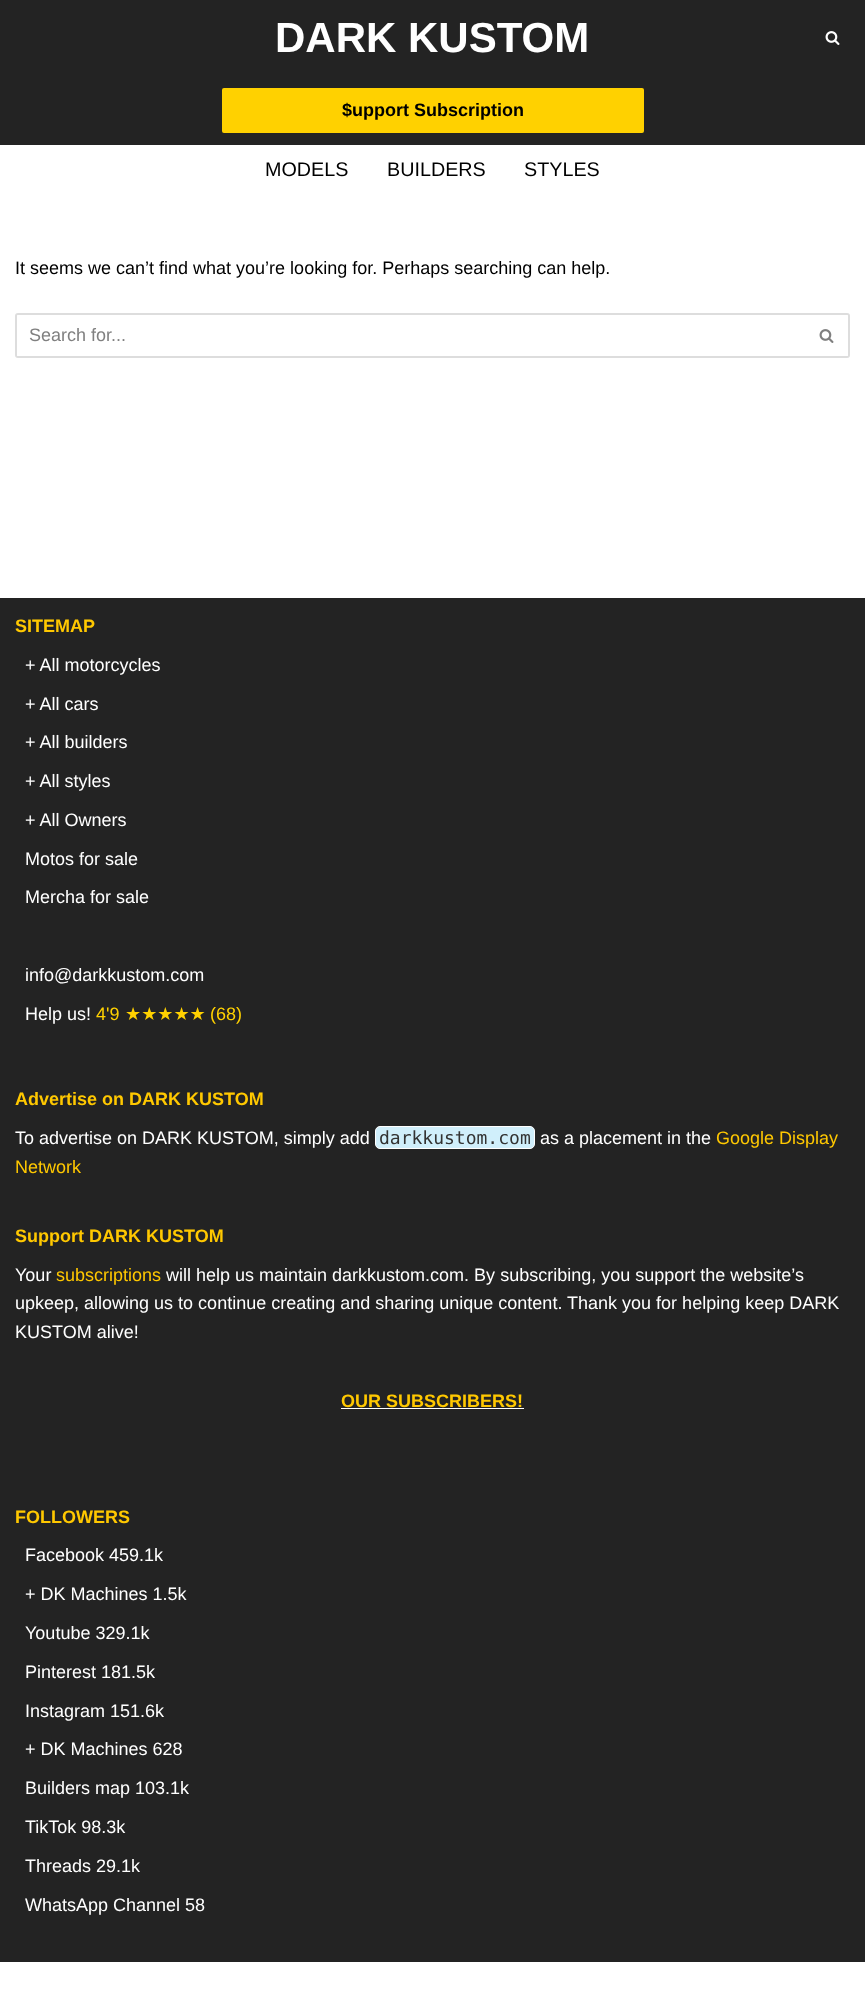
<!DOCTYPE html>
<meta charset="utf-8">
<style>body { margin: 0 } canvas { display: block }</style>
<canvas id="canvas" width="865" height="2007"></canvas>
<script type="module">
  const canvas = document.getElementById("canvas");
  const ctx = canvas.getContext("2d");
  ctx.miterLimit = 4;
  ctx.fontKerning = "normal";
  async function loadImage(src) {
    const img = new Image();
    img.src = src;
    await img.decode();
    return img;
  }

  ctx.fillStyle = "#ffffff";
  ctx.fillRect(0, 0, 865, 2007);
  ctx.fillStyle = "#232323";
  ctx.fillRect(0, 0, 865, 145);
  ctx.font = "bold 42px Liberation Sans";
  ctx.fillStyle = "#ffffff";
  ctx.fillText("DARK KUSTOM", 275, 52);
  ctx.drawImage(await loadImage("img1.png"), 825, 31, 15, 14);
  ctx.fillStyle = "#ffd100";
  ctx.beginPath();
  ctx.roundRect(222, 88, 422, 45, 2);
  ctx.fill();
  ctx.font = "bold 18px Liberation Sans";
  ctx.fillStyle = "#000000";
  ctx.fillText("$upport Subscription", 342, 116);
  ctx.font = "19.75px Liberation Sans";
  ctx.fillText("MODELS", 265, 176);
  ctx.fillText("BUILDERS", 387, 176);
  ctx.fillText("STYLES", 524, 176);
  ctx.font = "18px Liberation Sans";
  ctx.fillText("It seems we can’t find what you’re looking for. Perhaps searching can help.", 15, 274);
  ctx.fillStyle = "#dddddd";
  ctx.beginPath();
  ctx.moveTo(18, 313);
  ctx.lineTo(805, 313);
  ctx.lineTo(805, 358);
  ctx.lineTo(18, 358);
  ctx.bezierCurveTo(16, 358, 15, 357, 15, 355);
  ctx.lineTo(15, 316);
  ctx.bezierCurveTo(15, 314, 16, 313, 18, 313);
  ctx.closePath();
  ctx.moveTo(18, 315);
  ctx.lineTo(805, 315);
  ctx.lineTo(805, 356);
  ctx.lineTo(18, 356);
  ctx.bezierCurveTo(17, 356, 17, 356, 17, 355);
  ctx.lineTo(17, 316);
  ctx.bezierCurveTo(17, 315, 17, 315, 18, 315);
  ctx.closePath();
  ctx.fill("evenodd");
  ctx.fillStyle = "#808080";
  ctx.fillText("Search for...", 29, 341);
  ctx.fillStyle = "#dddddd";
  ctx.beginPath();
  ctx.moveTo(805, 313);
  ctx.lineTo(847, 313);
  ctx.bezierCurveTo(849, 313, 850, 314, 850, 316);
  ctx.lineTo(850, 355);
  ctx.bezierCurveTo(850, 357, 849, 358, 847, 358);
  ctx.lineTo(805, 358);
  ctx.closePath();
  ctx.moveTo(805, 315);
  ctx.lineTo(847, 315);
  ctx.bezierCurveTo(848, 315, 848, 315, 848, 316);
  ctx.lineTo(848, 355);
  ctx.bezierCurveTo(848, 356, 848, 356, 847, 356);
  ctx.lineTo(805, 356);
  ctx.closePath();
  ctx.fill("evenodd");
  ctx.drawImage(await loadImage("img2.png"), 819, 329, 15, 14);
  ctx.fillStyle = "#232323";
  ctx.fillRect(0, 598, 865, 1364);
  ctx.font = "bold 18px Liberation Sans";
  ctx.fillStyle = "#ffc800";
  ctx.fillText("SITEMAP", 15, 632);
  ctx.font = "18px Liberation Sans";
  ctx.fillStyle = "#ffffff";
  ctx.fillText("+ All motorcycles", 25, 671);
  ctx.fillText("+ All cars", 25, 710);
  ctx.fillText("+ All builders", 25, 748);
  ctx.fillText("+ All styles", 25, 787);
  ctx.fillText("+ All Owners", 25, 826);
  ctx.fillText("Motos for sale", 25, 865);
  ctx.fillText("Mercha for sale", 25, 903);
  ctx.fillText("info@darkkustom.com", 25, 981);
  ctx.fillText("Help us!", 25, 1020);
  ctx.fillStyle = "#ffd100";
  ctx.fillText("4'9", 96, 1020);
  ctx.font = "18px DejaVu Sans";
  ctx.fillText("★★★★★", 125, 1020);
  ctx.font = "18px Liberation Sans";
  ctx.fillText("(68)", 210, 1020);
  ctx.font = "bold 18px Liberation Sans";
  ctx.fillStyle = "#ffc800";
  ctx.fillText("Advertise on DARK KUSTOM", 15, 1105);
  ctx.font = "18px Liberation Sans";
  ctx.fillStyle = "#ffffff";
  ctx.fillText("To advertise on DARK KUSTOM, simply add", 15, 1144);
  ctx.fillStyle = "#d0effb";
  ctx.beginPath();
  ctx.roundRect(375.5, 1126.5, 159, 22, 4.5);
  ctx.fill();
  ctx.strokeStyle = "#ffffff";
  ctx.stroke();
  ctx.font = "18px DejaVu Sans Mono";
  ctx.fillStyle = "#333333";
  ctx.fillText("darkkustom.com", 379, 1144);
  ctx.font = "18px Liberation Sans";
  ctx.fillStyle = "#ffffff";
  ctx.fillText("as a placement in the", 540, 1144);
  ctx.fillStyle = "#ffc800";
  ctx.fillText("Google Display", 716, 1144);
  ctx.fillText("Network", 15, 1173);
  ctx.font = "bold 18px Liberation Sans";
  ctx.fillText("Support DARK KUSTOM", 15, 1242);
  ctx.font = "18px Liberation Sans";
  ctx.fillStyle = "#ffffff";
  ctx.fillText("Your", 15, 1281);
  ctx.fillStyle = "#ffc800";
  ctx.fillText("subscriptions", 56, 1281);
  ctx.fillStyle = "#ffffff";
  ctx.fillText("will help us maintain darkkustom.com. By subscribing, you support the website’s", 166, 1281);
  ctx.fillText("upkeep, allowing us to continue creating and sharing unique content. Thank you for helping keep DARK", 15, 1309);
  ctx.fillText("KUSTOM alive!", 15, 1338);
  ctx.font = "bold 18px Liberation Sans";
  ctx.fillStyle = "#ffc800";
  ctx.fillText("OUR SUBSCRIBERS!", 341, 1407);
  ctx.fillStyle = "#ffffff";
  ctx.fillRect(341, 1408, 183, 1);
  ctx.fillStyle = "#ffc800";
  ctx.fillText("FOLLOWERS", 15, 1523);
  ctx.font = "18px Liberation Sans";
  ctx.fillStyle = "#ffffff";
  ctx.fillText("Facebook 459.1k", 25, 1561);
  ctx.fillText("+ DK Machines 1.5k", 25, 1600);
  ctx.fillText("Youtube 329.1k", 25, 1639);
  ctx.fillText("Pinterest 181.5k", 25, 1678);
  ctx.fillText("Instagram 151.6k", 25, 1717);
  ctx.fillText("+ DK Machines 628", 25, 1755);
  ctx.fillText("Builders map 103.1k", 25, 1794);
  ctx.fillText("TikTok 98.3k", 25, 1833);
  ctx.fillText("Threads 29.1k", 25, 1872);
  ctx.fillText("WhatsApp Channel 58", 25, 1911);
</script>
